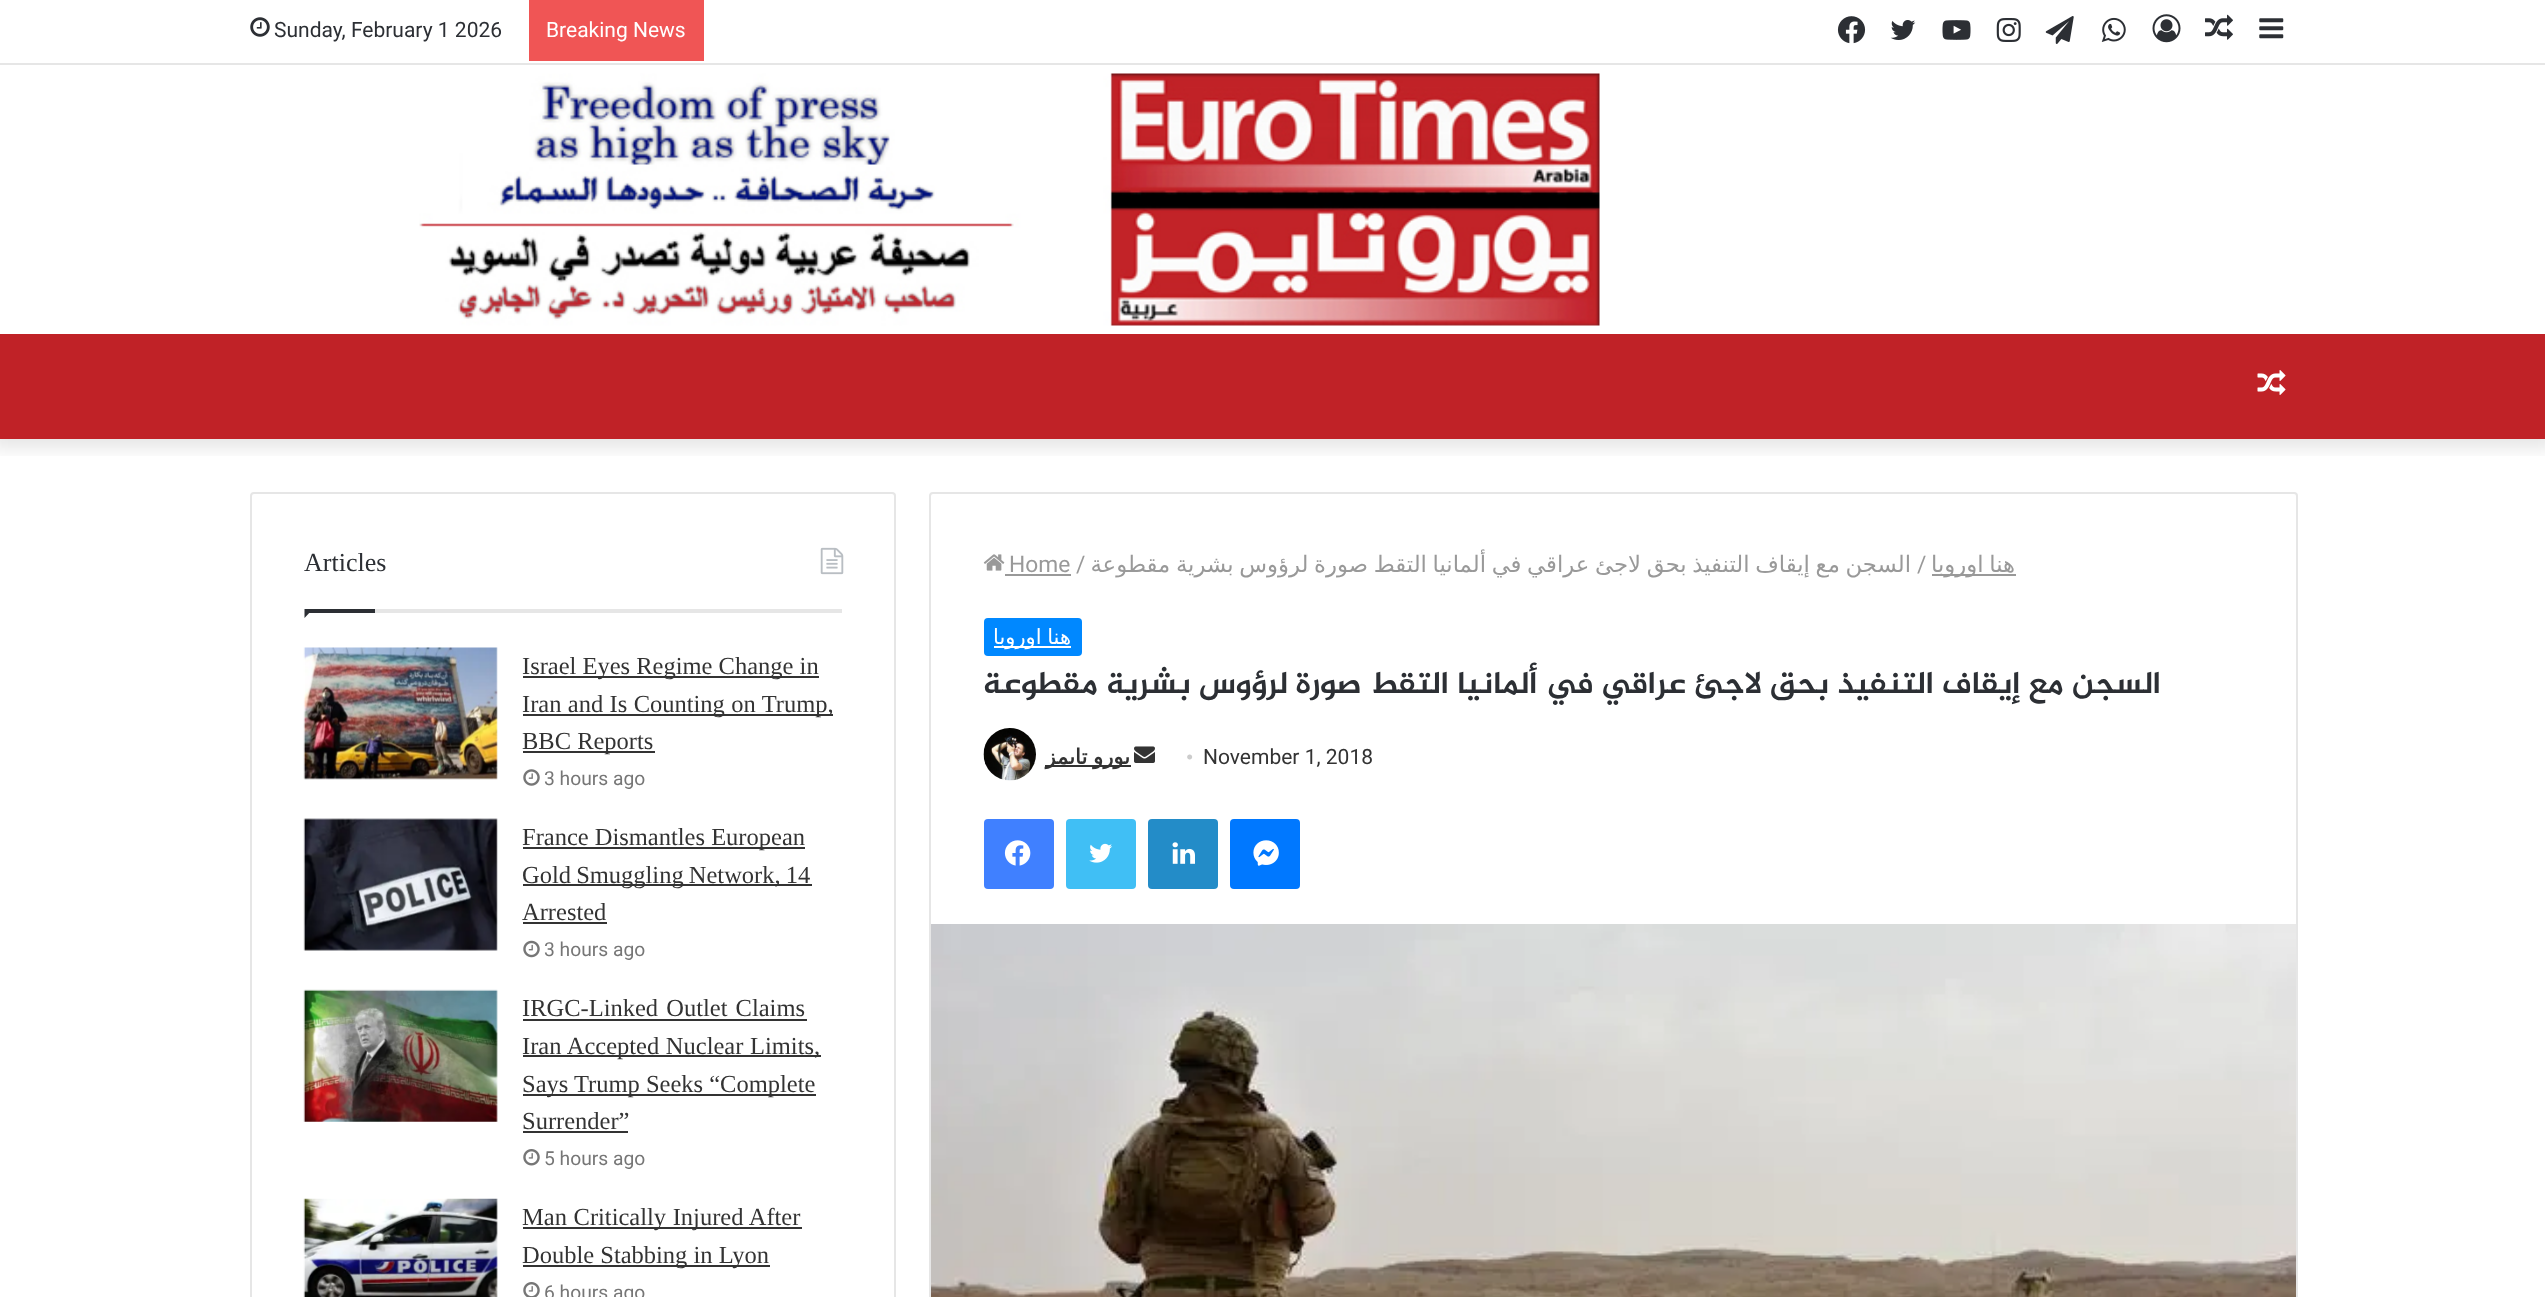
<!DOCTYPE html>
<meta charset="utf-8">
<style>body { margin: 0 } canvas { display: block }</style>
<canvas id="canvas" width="2545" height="1297"></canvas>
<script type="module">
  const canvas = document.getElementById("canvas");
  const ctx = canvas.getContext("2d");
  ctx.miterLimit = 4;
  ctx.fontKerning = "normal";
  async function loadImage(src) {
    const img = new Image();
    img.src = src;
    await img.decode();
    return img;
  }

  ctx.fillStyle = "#ffffff";
  ctx.fillRect(0, 0, 2545, 1297);
  ctx.save();
  ctx.beginPath();
  ctx.rect(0, 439, 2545, 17);
  ctx.clip();
  ctx.fillStyle = "rgba(0, 0, 0, 0.1)";
  ctx.filter = "blur(9px)";
  ctx.beginPath();
  ctx.rect(-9, -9, 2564, 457);
  ctx.fill();
  ctx.filter = "none";
  ctx.restore();
  ctx.fillStyle = "#e6e6e6";
  ctx.fillRect(0, 63, 2545, 2);
  ctx.drawImage(await loadImage("img1.png"), 250, 17, 20, 20);
  ctx.font = "21px Roboto";
  ctx.fillStyle = "#2c2f34";
  ctx.fillText("Sunday, February 1 2026", 274, 37);
  ctx.fillStyle = "#f05555";
  ctx.fillRect(529, 0, 175, 61);
  ctx.fillStyle = "#ffffff";
  ctx.fillText("Breaking News", 546, 37);
  ctx.drawImage(await loadImage("img2.png"), 1837, 16, 29, 28);
  ctx.drawImage(await loadImage("img3.png"), 1890, 20, 26, 20);
  ctx.drawImage(await loadImage("img4.png"), 1942, 20, 29, 20);
  ctx.drawImage(await loadImage("img5.png"), 1996, 18, 25, 24);
  ctx.drawImage(await loadImage("img6.png"), 2045, 16, 29, 28);
  ctx.drawImage(await loadImage("img7.png"), 2101, 17, 25, 25);
  ctx.drawImage(await loadImage("img8.png"), 2152, 14, 29, 29);
  ctx.drawImage(await loadImage("img9.png"), 2205, 14, 28, 26);
  ctx.drawImage(await loadImage("img10.png"), 2259, 18, 25, 21);
  ctx.drawImage(await loadImage("img11.png"), 419, 73, 1181, 253);
  ctx.fillStyle = "#c02227";
  ctx.fillRect(0, 334, 2545, 105);
  ctx.drawImage(await loadImage("img12.png"), 2257, 370, 29, 25);
  ctx.beginPath();
  ctx.roundRect(251, 493, 644, 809, 3);
  ctx.strokeStyle = "#e6e6e6";
  ctx.lineWidth = 2;
  ctx.stroke();
  ctx.fillStyle = "#e6e6e6";
  ctx.fillRect(375, 609, 467, 4);
  ctx.font = "26px Liberation Serif";
  ctx.fillStyle = "#2c2f34";
  ctx.fillText("Articles", 304, 571);
  ctx.drawImage(await loadImage("img13.png"), 820, 547, 24, 28);
  ctx.beginPath();
  ctx.moveTo(304.5, 609);
  ctx.lineTo(313, 609);
  ctx.lineTo(304.5, 618);
  ctx.closePath();
  ctx.fill();
  ctx.fillRect(305, 609, 70, 4);
  ctx.drawImage(await loadImage("img14.png"), 303, 647, 195, 133);
  ctx.fillStyle = "#333333";
  ctx.fillRect(523, 676, 296, 2);
  ctx.font = "24.5px Liberation Serif";
  ctx.fillText("Israel Eyes Regime Change in", 522, 674);
  ctx.fillRect(523, 714, 310, 2);
  ctx.wordSpacing = "0.25px";
  ctx.fillText("Iran and Is Counting on Trump,", 522, 712);
  ctx.fillRect(523, 751, 132, 2);
  ctx.wordSpacing = "0px";
  ctx.fillText("BBC Reports", 522, 749);
  ctx.drawImage(await loadImage("img15.png"), 523, 769, 17, 17);
  ctx.font = "19.25px Roboto";
  ctx.fillStyle = "#767676";
  ctx.fillText("3 hours ago", 544, 785);
  ctx.drawImage(await loadImage("img16.png"), 303, 818, 195, 133);
  ctx.fillStyle = "#333333";
  ctx.fillRect(523, 847, 282, 2);
  ctx.font = "24.5px Liberation Serif";
  ctx.fillText("France Dismantles European", 522, 845);
  ctx.fillRect(523, 884, 289, 2);
  ctx.wordSpacing = "-1px";
  ctx.fillText("Gold Smuggling Network, 14", 522, 883);
  ctx.wordSpacing = "0px";
  ctx.fillText("Arrested", 522, 920);
  ctx.fillRect(523, 922, 84, 2);
  ctx.drawImage(await loadImage("img17.png"), 523, 940, 17, 18);
  ctx.font = "19.25px Roboto";
  ctx.fillStyle = "#767676";
  ctx.fillText("3 hours ago", 544, 956);
  ctx.drawImage(await loadImage("img18.png"), 303, 989, 195, 133);
  ctx.wordSpacing = "2px";
  ctx.font = "24.5px Liberation Serif";
  ctx.fillStyle = "#333333";
  ctx.fillText("IRGC-Linked Outlet Claims", 522, 1016);
  ctx.fillRect(523, 1019, 284, 2);
  ctx.fillRect(523, 1055, 298, 2);
  ctx.wordSpacing = "0.5px";
  ctx.fillText("Iran Accepted Nuclear Limits,", 522, 1054);
  ctx.fillRect(523, 1094, 293, 2);
  ctx.wordSpacing = "0px";
  ctx.fillText("Says Trump Seeks “Complete", 522, 1092);
  ctx.fillText("Surrender”", 522, 1129);
  ctx.fillRect(523, 1131, 105, 2);
  ctx.drawImage(await loadImage("img19.png"), 523, 1149, 17, 17);
  ctx.font = "19.25px Roboto";
  ctx.fillStyle = "#767676";
  ctx.fillText("5 hours ago", 544, 1165);
  ctx.drawImage(await loadImage("img20.png"), 303, 1198, 195, 99);
  ctx.fillStyle = "#333333";
  ctx.fillRect(523, 1227, 279, 2);
  ctx.wordSpacing = "0.5px";
  ctx.font = "24.5px Liberation Serif";
  ctx.fillText("Man Critically Injured After", 522, 1225);
  ctx.fillRect(523, 1265, 247, 2);
  ctx.wordSpacing = "0px";
  ctx.fillText("Double Stabbing in Lyon", 522, 1263);
  ctx.drawImage(await loadImage("img21.png"), 523, 1282, 17, 15);
  ctx.font = "19.25px Roboto";
  ctx.fillStyle = "#767676";
  ctx.fillText("6 hours ago", 544, 1299);
  ctx.beginPath();
  ctx.roundRect(930, 493, 1367, 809, 3);
  ctx.stroke();
  ctx.drawImage(await loadImage("img22.png"), 983, 554, 22, 17);
  ctx.font = "22.75px Roboto";
  ctx.fillStyle = "#999999";
  ctx.fillText("Home", 1009, 572);
  ctx.fillRect(1005, 574, 66, 2);
  ctx.fillText("/", 1076, 572);
  ctx.fillText("/", 1917, 572);
  ctx.wordSpacing = "-1.6px";
  ctx.direction = "rtl";
  ctx.font = "22.75px DejaVu Sans";
  ctx.fillText("السجن مع إيقاف التنفيذ بحق لاجئ عراقي في ألمانيا التقط صورة لرؤوس بشرية مقطوعة", 1911, 572);
  ctx.fillRect(1932, 574, 84, 2);
  ctx.fillText("هنا اوروبا", 2015, 572);
  ctx.fillStyle = "#0088ff";
  ctx.beginPath();
  ctx.roundRect(984, 618, 98, 38, 4);
  ctx.fill();
  ctx.fillStyle = "#ffffff";
  ctx.fillRect(994, 646, 77, 2);
  ctx.wordSpacing = "-1px";
  ctx.font = "21px DejaVu Sans";
  ctx.fillText("هنا اوروبا", 1071, 644);
  ctx.wordSpacing = "0px";
  ctx.font = "bold 31.5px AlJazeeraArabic";
  ctx.fillStyle = "#2c2f34";
  ctx.fillText("السجن مع إيقاف التنفيذ بحق لاجئ عراقي في ألمانيا التقط صورة لرؤوس بشرية مقطوعة", 2161, 693);
  ctx.drawImage(await loadImage("img23.png"), 983, 728, 53, 53);
  ctx.fillStyle = "#333333";
  ctx.fillRect(1045, 765, 86, 2);
  ctx.wordSpacing = "-1px";
  ctx.font = "bold 21px DejaVu Sans";
  ctx.fillText("يورو تايمز", 1130, 764);
  ctx.drawImage(await loadImage("img24.png"), 1134, 746, 21, 17);
  ctx.wordSpacing = "0px";
  ctx.direction = "ltr";
  ctx.font = "21px Liberation Serif";
  ctx.fillStyle = "#cccccc";
  ctx.fillText("•", 1186, 764);
  ctx.font = "21px Roboto";
  ctx.fillStyle = "#333333";
  ctx.fillText("November 1, 2018", 1203, 764);
  ctx.fillStyle = "#4080ff";
  ctx.beginPath();
  ctx.roundRect(984, 819, 70, 70, 4);
  ctx.fill();
  ctx.drawImage(await loadImage("img25.png"), 1004, 840, 27, 26);
  ctx.fillStyle = "#40bff5";
  ctx.beginPath();
  ctx.roundRect(1066, 819, 70, 70, 4);
  ctx.fill();
  ctx.drawImage(await loadImage("img26.png"), 1089, 843, 24, 20);
  ctx.fillStyle = "#238cc8";
  ctx.beginPath();
  ctx.roundRect(1148, 819, 70, 70, 4);
  ctx.fill();
  ctx.drawImage(await loadImage("img27.png"), 1172, 842, 23, 22);
  ctx.fillStyle = "#0078ff";
  ctx.beginPath();
  ctx.roundRect(1230, 819, 70, 70, 4);
  ctx.fill();
  ctx.drawImage(await loadImage("img28.png"), 1253, 840, 26, 26);
  ctx.drawImage(await loadImage("img29.png"), 931, 924, 1365, 373);
</script>
